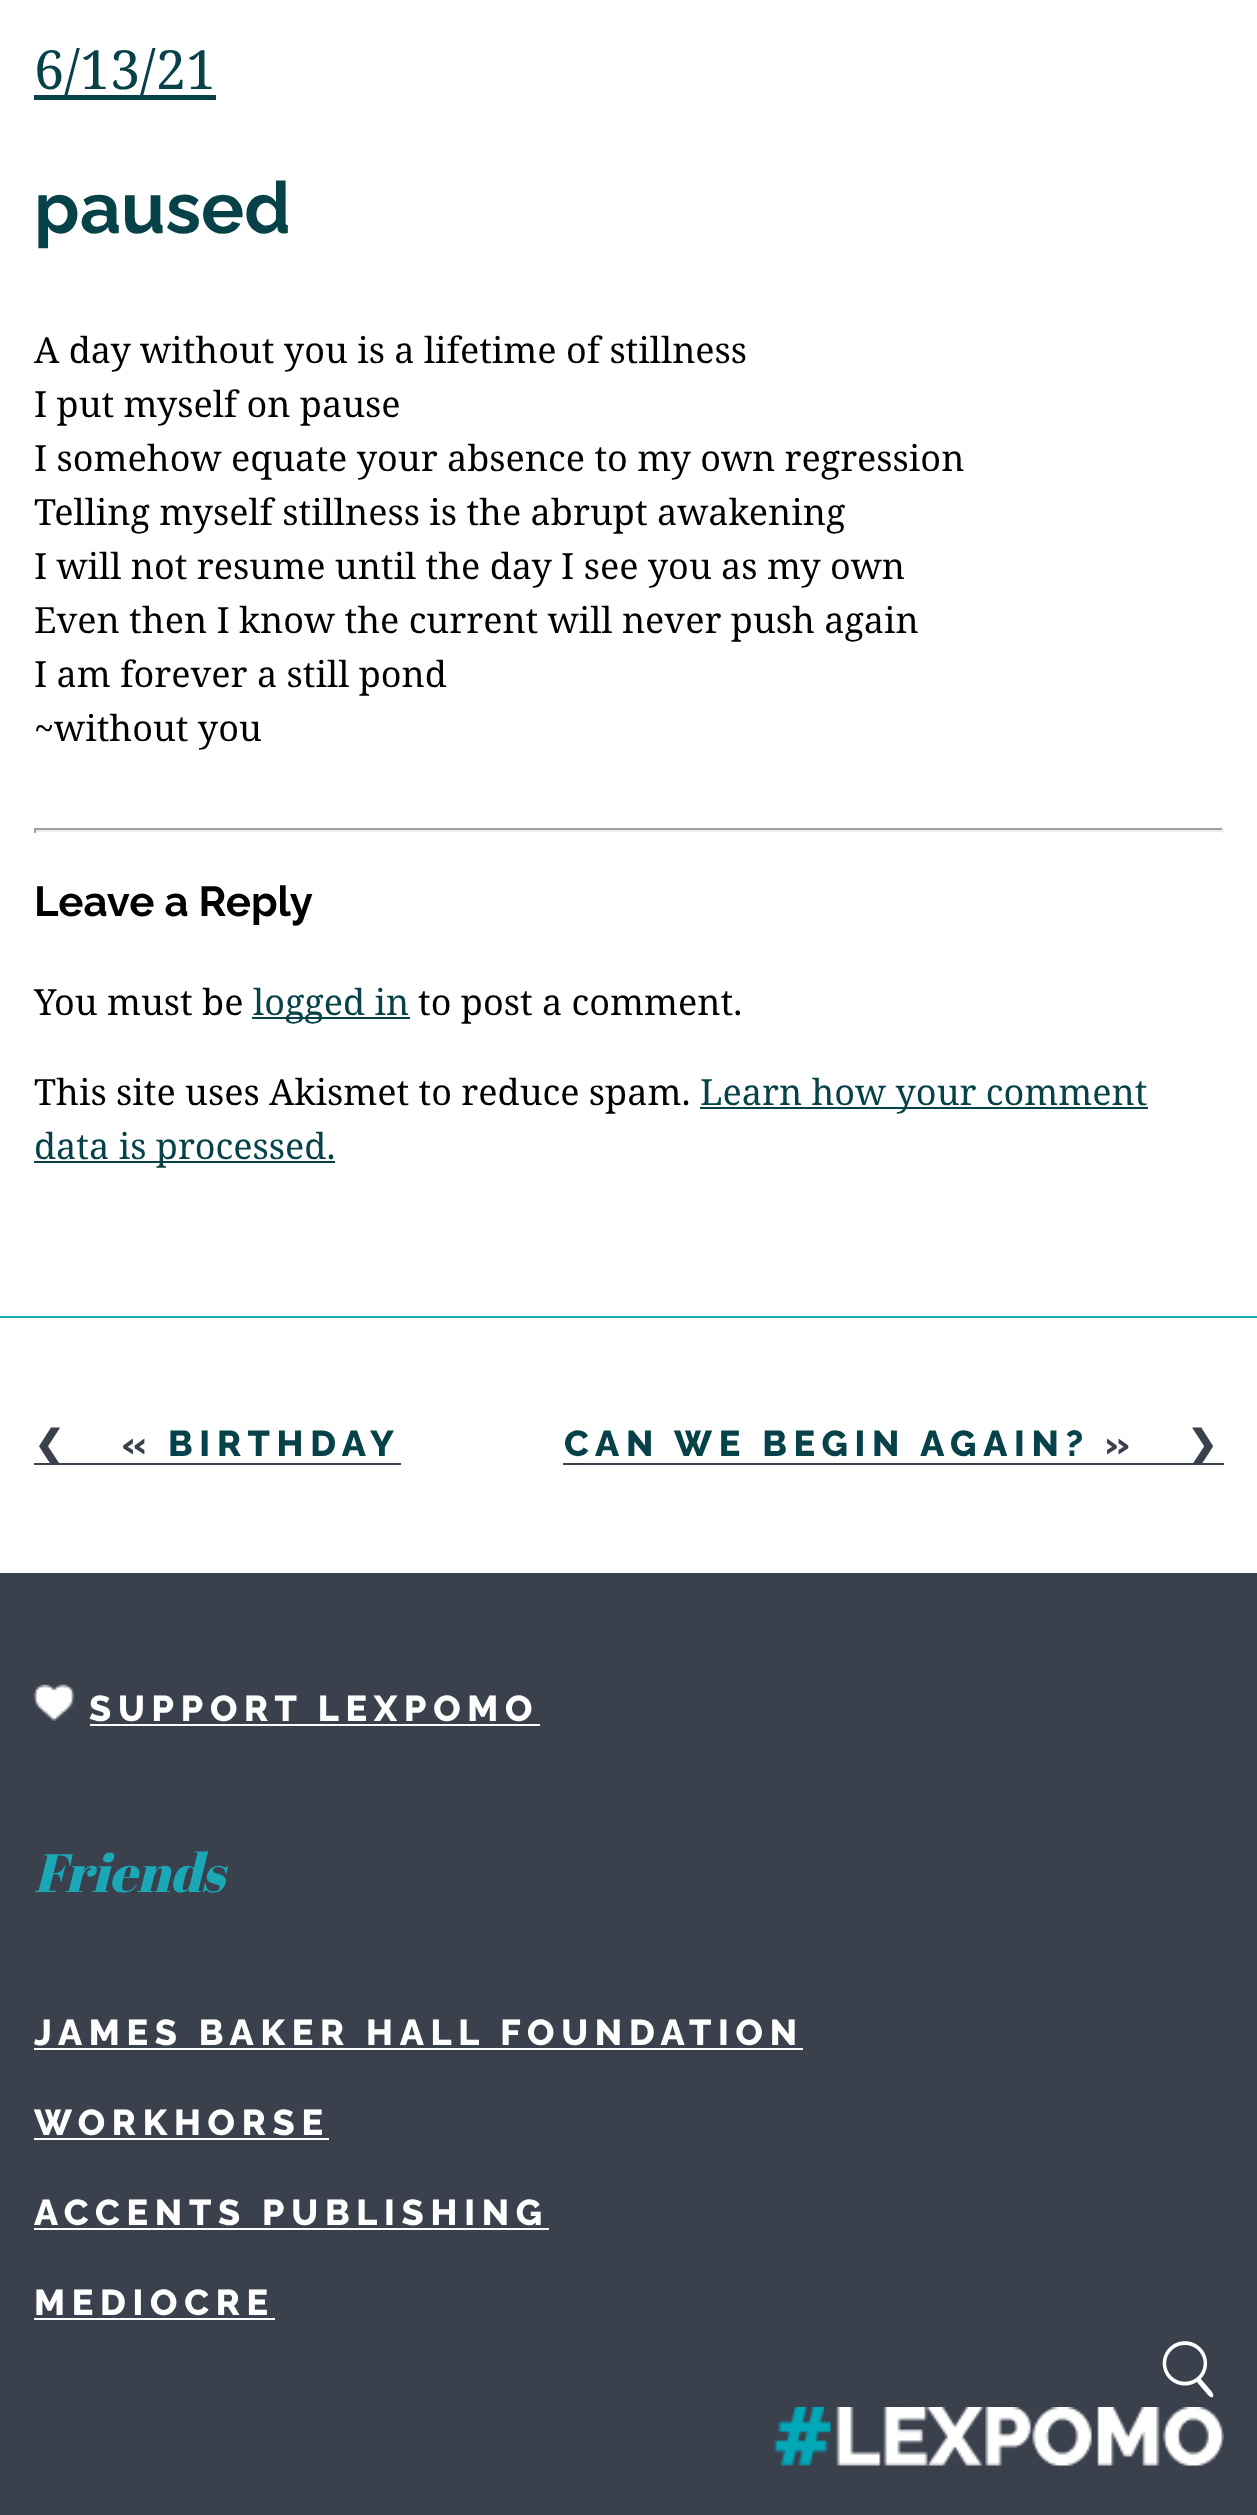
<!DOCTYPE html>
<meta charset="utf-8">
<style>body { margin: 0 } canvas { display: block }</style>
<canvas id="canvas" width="1257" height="2515"></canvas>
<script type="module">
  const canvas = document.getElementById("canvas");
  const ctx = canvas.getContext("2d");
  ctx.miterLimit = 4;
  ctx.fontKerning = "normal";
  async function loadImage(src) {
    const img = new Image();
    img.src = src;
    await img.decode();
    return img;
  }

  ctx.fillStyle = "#ffffff";
  ctx.fillRect(0, 0, 1257, 2515);
  ctx.fillStyle = "#1aa8b7";
  ctx.fillRect(0, 1316, 1257, 2);
  ctx.fillStyle = "#064248";
  ctx.fillRect(34, 95, 182, 5);
  ctx.font = "54px Noto Serif";
  ctx.fillText("6/13/21", 34, 89);
  ctx.font = "bold 72px Raleway";
  ctx.fillText("paused", 34, 233);
  ctx.font = "36px Noto Serif";
  ctx.fillStyle = "#000000";
  ctx.fillText("A day without you is a lifetime of stillness", 34, 363);
  ctx.fillText("I put myself on pause", 34, 417);
  ctx.fillText("I somehow equate your absence to my own regression", 34, 471);
  ctx.fillText("Telling myself stillness is the abrupt awakening", 34, 525);
  ctx.fillText("I will not resume until the day I see you as my own", 34, 579);
  ctx.fillText("Even then I know the current will never push again", 34, 633);
  ctx.fillText("I am forever a still pond", 34, 687);
  ctx.fillText("~without you", 34, 741);
  ctx.fillStyle = "#9f9f9f";
  ctx.fillRect(34, 828, 1190, 2);
  ctx.fillStyle = "#eeeeee";
  ctx.fillRect(1222, 828, 2, 5);
  ctx.fillRect(34, 830, 1190, 2);
  ctx.fillStyle = "#9f9f9f";
  ctx.fillRect(34, 828, 2, 5);
  ctx.font = "bold 42px Raleway";
  ctx.fillStyle = "#000000";
  ctx.fillText("Leave a Reply", 34, 916);
  ctx.font = "36px Noto Serif";
  ctx.fillText("You must be", 34, 1015);
  ctx.fillStyle = "#064248";
  ctx.fillRect(252, 1017, 158, 2);
  ctx.fillText("logged in", 253, 1015);
  ctx.fillStyle = "#000000";
  ctx.fillText("to post a comment.", 418, 1015);
  ctx.fillText("This site uses Akismet to reduce spam.", 34, 1105);
  ctx.fillStyle = "#064248";
  ctx.fillRect(700, 1107, 448, 2);
  ctx.fillText("Learn how your comment", 700, 1105);
  ctx.fillRect(34, 1161, 301, 2);
  ctx.fillText("data is processed.", 34, 1159);
  ctx.fillStyle = "#3b404d";
  ctx.fillRect(34, 1463, 367, 2);
  ctx.letterSpacing = "6.75px";
  ctx.font = "bold 36px DejaVu Sans";
  ctx.fillText("❮", 34, 1456);
  ctx.font = "800 36px Raleway";
  ctx.fillText("«", 122, 1456);
  ctx.fillStyle = "#064248";
  ctx.fillText("BIRTHDAY", 168, 1456);
  ctx.fillStyle = "#3b404d";
  ctx.fillRect(563, 1463, 661, 2);
  ctx.fillStyle = "#064248";
  ctx.fillText("CAN WE BEGIN AGAIN?", 564, 1456);
  ctx.fillStyle = "#3b404d";
  ctx.fillText("»", 1105, 1456);
  ctx.font = "bold 36px DejaVu Sans";
  ctx.fillText("❯", 1187, 1456);
  ctx.fillRect(0, 1573, 1257, 942);
  ctx.drawImage(await loadImage("img1.png"), 33, 1684, 42, 37);
  ctx.font = "800 36px Raleway";
  ctx.fillStyle = "#ffffff";
  ctx.fillText("SUPPORT LEXPOMO", 89, 1721);
  ctx.fillRect(90, 1724, 450, 2);
  ctx.letterSpacing = "0px";
  ctx.font = "italic 54px Abril Fatface";
  ctx.fillStyle = "#1aa8b7";
  ctx.fillText("Friends", 34, 1892);
  ctx.letterSpacing = "6.75px";
  ctx.font = "800 36px Raleway";
  ctx.fillStyle = "#ffffff";
  ctx.fillText("JAMES BAKER HALL FOUNDATION", 34, 2045);
  ctx.fillRect(34, 2048, 769, 2);
  ctx.fillText("WORKHORSE", 34, 2135);
  ctx.fillRect(34, 2138, 295, 2);
  ctx.fillText("ACCENTS PUBLISHING", 34, 2225);
  ctx.fillRect(34, 2228, 515, 2);
  ctx.fillText("MEDIOCRE", 34, 2315);
  ctx.fillRect(34, 2318, 241, 2);
  ctx.drawImage(await loadImage("img2.png"), 1162, 2341, 52, 57);
  ctx.drawImage(await loadImage("img3.png"), 774, 2407, 450, 59);
</script>
